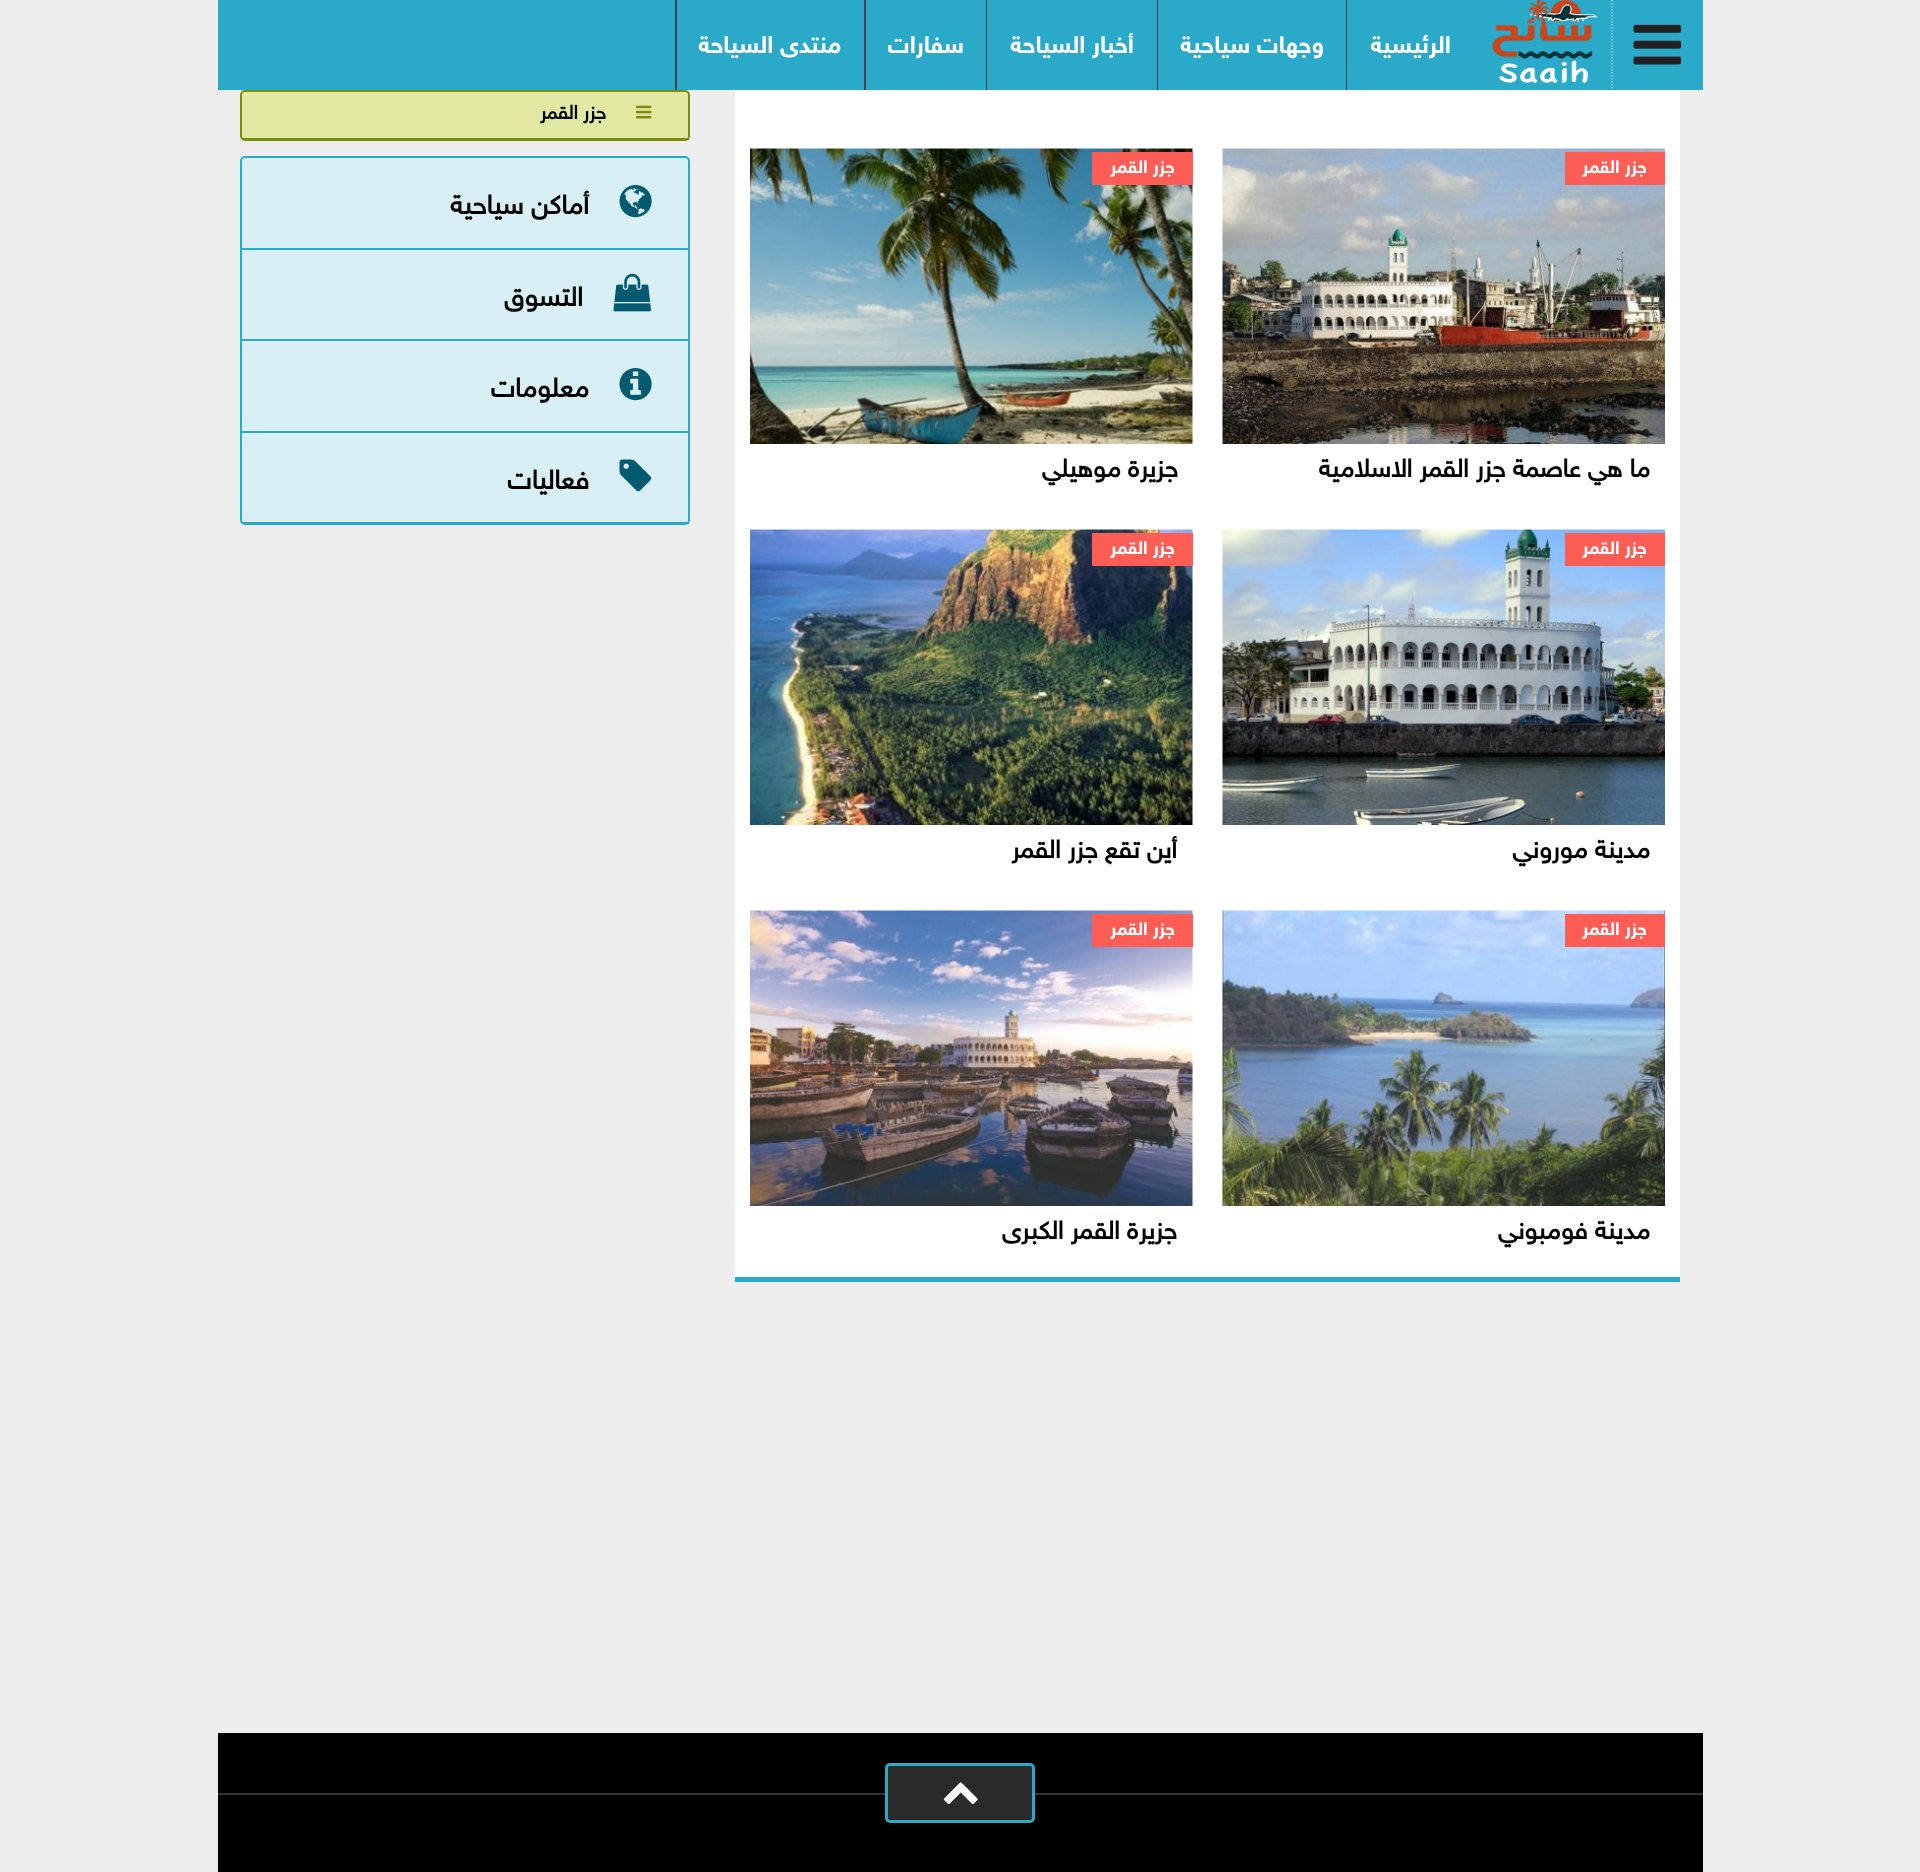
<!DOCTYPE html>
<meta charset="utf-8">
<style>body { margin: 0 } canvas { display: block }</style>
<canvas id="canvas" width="1920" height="1872"></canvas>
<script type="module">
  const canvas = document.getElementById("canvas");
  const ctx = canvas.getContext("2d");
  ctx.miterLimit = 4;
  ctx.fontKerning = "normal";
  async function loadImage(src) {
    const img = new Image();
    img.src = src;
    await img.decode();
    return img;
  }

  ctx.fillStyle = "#eeeeee";
  ctx.fillRect(0, 0, 1920, 1872);
  ctx.fillStyle = "#2aa9c9";
  ctx.fillRect(218, 0, 1485, 90);
  ctx.beginPath();
  ctx.moveTo(1612, 0);
  ctx.lineTo(1612, 90);
  ctx.strokeStyle = "#94d4e4";
  ctx.lineWidth = 1.5;
  ctx.setLineDash([1.5, 1.5]);
  ctx.stroke();
  ctx.drawImage(await loadImage("img1.png"), 1633, 24, 49, 41);
  ctx.drawImage(await loadImage("img2.png"), 1492, 0, 106, 83);
  ctx.fillStyle = "#44464f";
  ctx.fillRect(1346, 0, 1, 90);
  ctx.direction = "rtl";
  ctx.font = "bold 24px 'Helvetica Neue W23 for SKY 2'";
  ctx.fillStyle = "#ffffff";
  ctx.fillText("الرئيسية", 1451, 53);
  ctx.fillStyle = "#44464f";
  ctx.fillRect(1157, 0, 1, 90);
  ctx.fillStyle = "#ffffff";
  ctx.fillText("وجهات سياحية", 1324, 53);
  ctx.fillStyle = "#44464f";
  ctx.fillRect(986, 0, 1, 90);
  ctx.fillStyle = "#ffffff";
  ctx.fillText("أخبار السياحة", 1134, 53);
  ctx.fillStyle = "#44464f";
  ctx.fillRect(864, 0, 2, 90);
  ctx.fillStyle = "#ffffff";
  ctx.fillText("سفارات", 964, 53);
  ctx.fillStyle = "#44464f";
  ctx.fillRect(675, 0, 2, 90);
  ctx.fillStyle = "#ffffff";
  ctx.fillText("منتدى السياحة", 841, 53);
  ctx.fillRect(735, 90, 945, 1187);
  ctx.fillStyle = "#2aa9c9";
  ctx.fillRect(735, 1277, 945, 5);
  ctx.drawImage(await loadImage("img3.png"), 1222, 148, 443, 296);
  ctx.fillStyle = "#fe5d55";
  ctx.fillRect(1565, 152, 100, 33);
  ctx.font = "bold 18px 'Helvetica Neue W23 for SKY 2'";
  ctx.fillStyle = "#ffffff";
  ctx.fillText("جزر القمر", 1647, 173);
  ctx.font = "bold 25.5px 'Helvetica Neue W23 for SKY'";
  ctx.fillStyle = "#000000";
  ctx.fillText("ما هي عاصمة جزر القمر الاسلامية", 1650, 477);
  ctx.drawImage(await loadImage("img4.png"), 750, 148, 443, 296);
  ctx.fillStyle = "#fe5d55";
  ctx.fillRect(1092, 152, 101, 33);
  ctx.font = "bold 18px 'Helvetica Neue W23 for SKY 2'";
  ctx.fillStyle = "#ffffff";
  ctx.fillText("جزر القمر", 1175, 173);
  ctx.font = "bold 25.5px 'Helvetica Neue W23 for SKY'";
  ctx.fillStyle = "#000000";
  ctx.fillText("جزيرة موهيلي", 1178, 477);
  ctx.drawImage(await loadImage("img5.png"), 1222, 529, 443, 296);
  ctx.fillStyle = "#fe5d55";
  ctx.fillRect(1565, 533, 100, 33);
  ctx.font = "bold 18px 'Helvetica Neue W23 for SKY 2'";
  ctx.fillStyle = "#ffffff";
  ctx.fillText("جزر القمر", 1647, 554);
  ctx.font = "bold 25.5px 'Helvetica Neue W23 for SKY'";
  ctx.fillStyle = "#000000";
  ctx.fillText("مدينة موروني", 1650, 858);
  ctx.drawImage(await loadImage("img6.png"), 750, 529, 443, 296);
  ctx.fillStyle = "#fe5d55";
  ctx.fillRect(1092, 533, 101, 33);
  ctx.font = "bold 18px 'Helvetica Neue W23 for SKY 2'";
  ctx.fillStyle = "#ffffff";
  ctx.fillText("جزر القمر", 1175, 554);
  ctx.font = "bold 25.5px 'Helvetica Neue W23 for SKY'";
  ctx.fillStyle = "#000000";
  ctx.fillText("أين تقع جزر القمر", 1177, 858);
  ctx.drawImage(await loadImage("img7.png"), 1222, 910, 443, 296);
  ctx.fillStyle = "#fe5d55";
  ctx.fillRect(1565, 914, 100, 33);
  ctx.font = "bold 18px 'Helvetica Neue W23 for SKY 2'";
  ctx.fillStyle = "#ffffff";
  ctx.fillText("جزر القمر", 1647, 935);
  ctx.font = "bold 25.5px 'Helvetica Neue W23 for SKY'";
  ctx.fillStyle = "#000000";
  ctx.fillText("مدينة فومبوني", 1650, 1239);
  ctx.drawImage(await loadImage("img8.png"), 750, 910, 443, 296);
  ctx.fillStyle = "#fe5d55";
  ctx.fillRect(1092, 914, 101, 33);
  ctx.font = "bold 18px 'Helvetica Neue W23 for SKY 2'";
  ctx.fillStyle = "#ffffff";
  ctx.fillText("جزر القمر", 1175, 935);
  ctx.font = "bold 25.5px 'Helvetica Neue W23 for SKY'";
  ctx.fillStyle = "#000000";
  ctx.fillText("جزيرة القمر الكبرى", 1177, 1239);
  ctx.fillStyle = "#e1e9a3";
  ctx.beginPath();
  ctx.roundRect(241, 91, 448, 49, 4);
  ctx.fill();
  ctx.strokeStyle = "#7d8c12";
  ctx.lineWidth = 2;
  ctx.setLineDash([]);
  ctx.stroke();
  ctx.fillStyle = "#7d8c12";
  ctx.fillRect(242, 138, 447, 2);
  ctx.drawImage(await loadImage("img9.png"), 636, 105, 16, 14);
  ctx.font = "bold 19.5px 'Helvetica Neue W23 for SKY'";
  ctx.fillStyle = "#000000";
  ctx.fillText("جزر القمر", 606, 119);
  ctx.fillStyle = "#d8eff5";
  ctx.beginPath();
  ctx.roundRect(241, 157, 448, 367, 4);
  ctx.fill();
  ctx.strokeStyle = "#2aa9c9";
  ctx.stroke();
  ctx.fillStyle = "#2aa9c9";
  ctx.fillRect(242, 248, 447, 2);
  ctx.drawImage(await loadImage("img10.png"), 619, 185, 33, 33);
  ctx.font = "bold 27px 'Helvetica Neue W23 for SKY'";
  ctx.fillStyle = "#000000";
  ctx.fillText("أماكن سياحية", 589, 214);
  ctx.fillStyle = "#2aa9c9";
  ctx.fillRect(242, 339, 447, 2);
  ctx.drawImage(await loadImage("img11.png"), 613, 273, 38, 39);
  ctx.fillStyle = "#000000";
  ctx.fillText("التسوق", 583, 306);
  ctx.fillStyle = "#2aa9c9";
  ctx.fillRect(242, 431, 447, 2);
  ctx.drawImage(await loadImage("img12.png"), 619, 368, 33, 33);
  ctx.fillStyle = "#000000";
  ctx.fillText("معلومات", 589, 397);
  ctx.fillStyle = "#2aa9c9";
  ctx.fillRect(242, 522, 447, 2);
  ctx.drawImage(await loadImage("img13.png"), 619, 459, 33, 33);
  ctx.fillStyle = "#000000";
  ctx.fillText("فعاليات", 589, 489);
  ctx.fillRect(218, 1733, 1485, 139);
  ctx.fillStyle = "#333333";
  ctx.fillRect(218, 1793, 1485, 2);
  ctx.fillStyle = "#2a2a2a";
  ctx.beginPath();
  ctx.roundRect(888, 1766, 144, 54, 1.5);
  ctx.fill();
  ctx.beginPath();
  ctx.roundRect(886.5, 1764.5, 147, 57, 3.5);
  ctx.lineWidth = 3;
  ctx.stroke();
  ctx.drawImage(await loadImage("img14.png"), 943, 1782, 35, 22);
</script>
